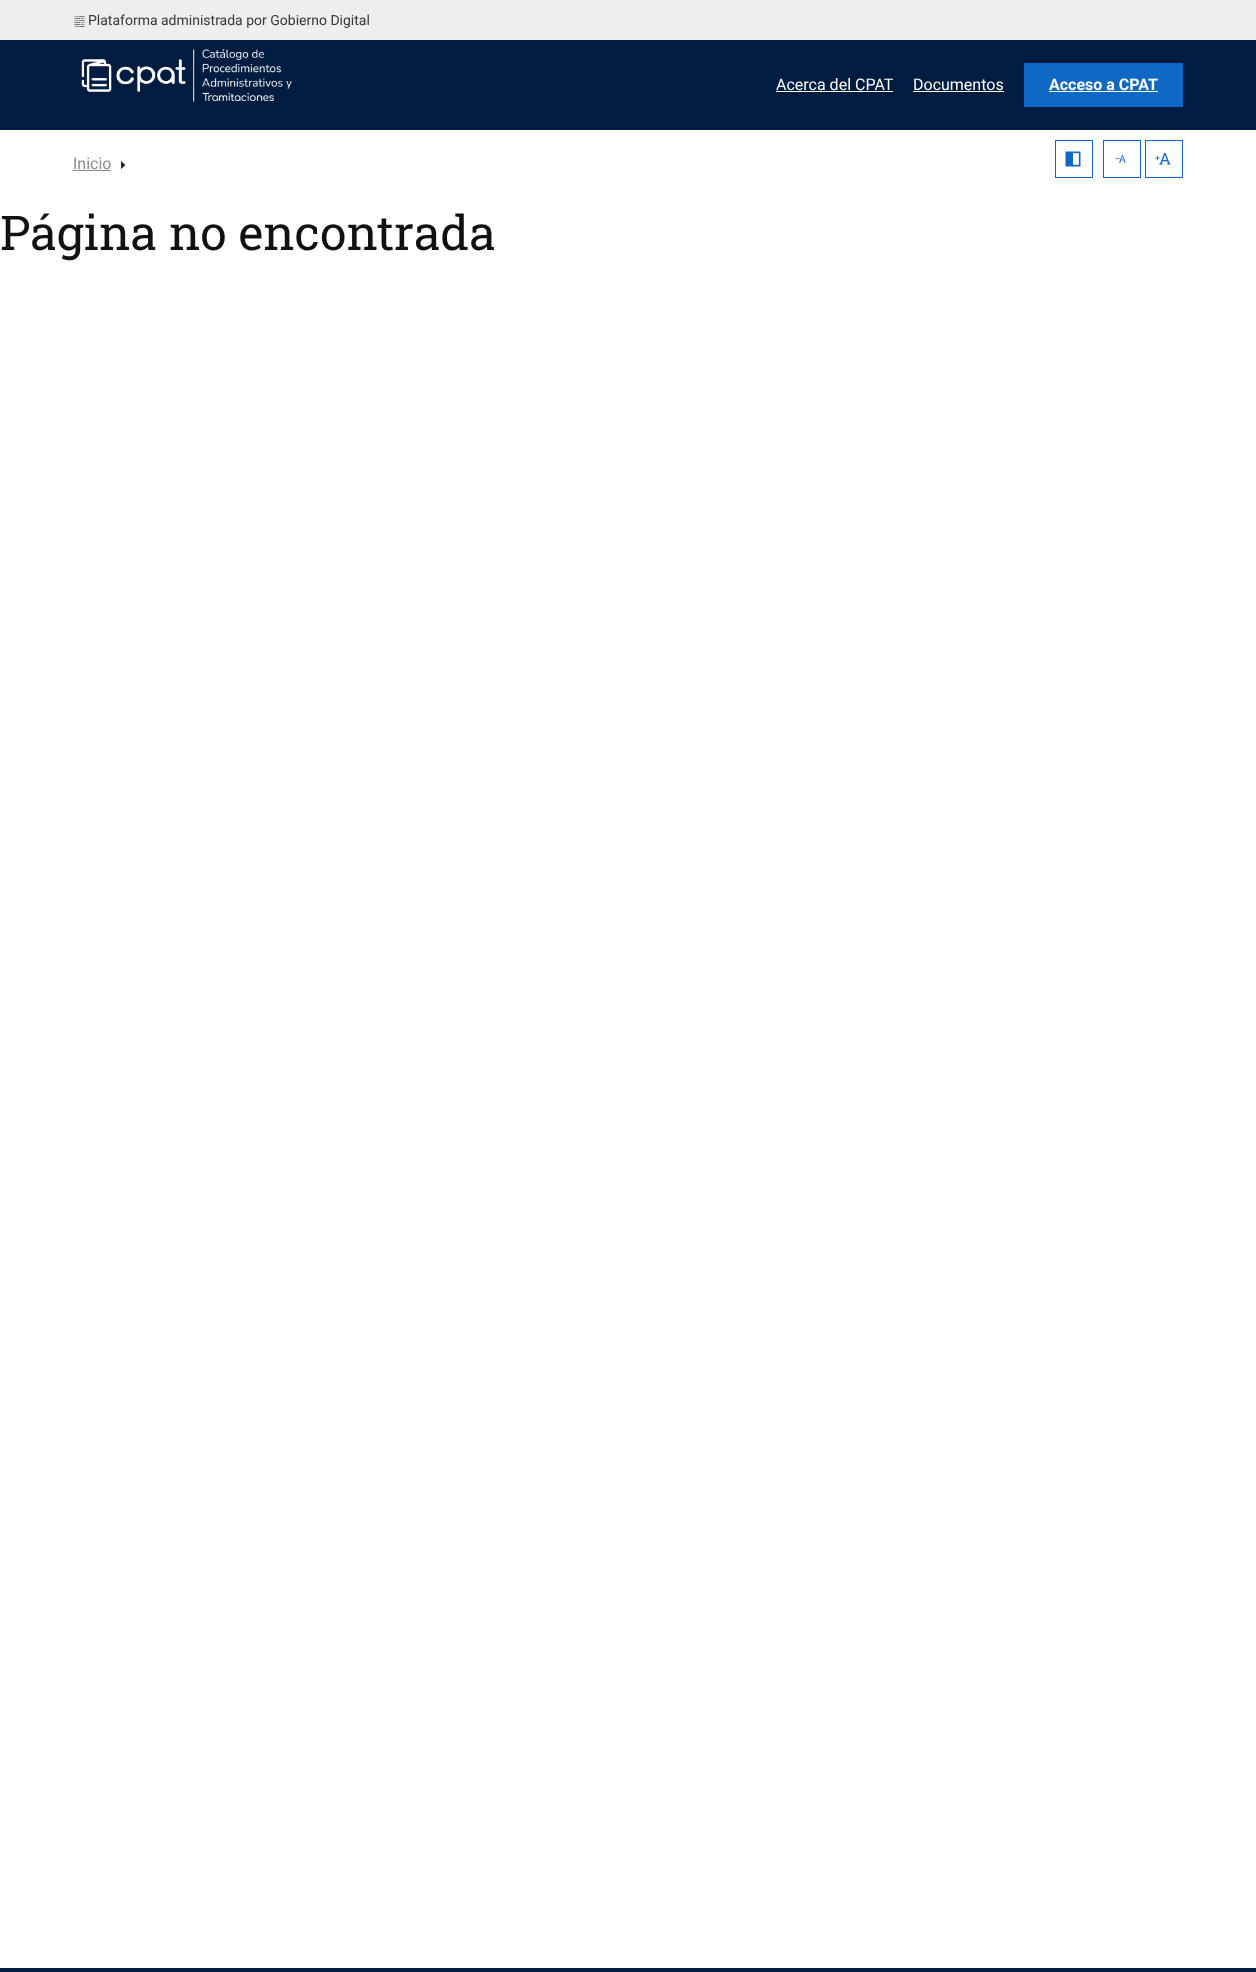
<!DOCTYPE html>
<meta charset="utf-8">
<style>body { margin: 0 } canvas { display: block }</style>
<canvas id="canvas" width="1256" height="1972"></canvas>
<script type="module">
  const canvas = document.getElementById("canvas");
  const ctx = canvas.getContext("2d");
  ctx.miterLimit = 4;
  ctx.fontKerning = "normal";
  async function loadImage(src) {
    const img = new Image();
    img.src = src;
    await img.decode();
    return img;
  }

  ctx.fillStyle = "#ffffff";
  ctx.fillRect(0, 0, 1256, 1972);
  ctx.fillStyle = "#eeeeee";
  ctx.fillRect(0, 0, 1256, 40);
  ctx.drawImage(await loadImage("img1.png"), 74, 16, 11, 11);
  ctx.font = "14px Roboto";
  ctx.fillStyle = "#373737";
  ctx.fillText("Plataforma administrada por Gobierno Digital", 88, 25);
  ctx.fillStyle = "#001c41";
  ctx.fillRect(0, 40, 1256, 90);
  ctx.drawImage(await loadImage("img2.png"), 81, 49, 211, 53);
  ctx.font = "16px Roboto";
  ctx.fillStyle = "#ffffff";
  ctx.fillText("Acerca del CPAT", 776, 90);
  ctx.fillRect(776, 91, 117, 1);
  ctx.fillText("Documentos", 913, 90);
  ctx.fillRect(913, 91, 91, 1);
  ctx.fillStyle = "#0f69c4";
  ctx.fillRect(1024, 63, 159, 44);
  ctx.font = "bold 16px Roboto";
  ctx.fillStyle = "#ffffff";
  ctx.fillText("Acceso a CPAT", 1049, 90);
  ctx.fillRect(1049, 91, 109, 1);
  ctx.font = "16px Roboto";
  ctx.fillStyle = "#8a8a8a";
  ctx.fillText("Inicio", 73, 169);
  ctx.fillRect(73, 170, 38, 1);
  ctx.fillStyle = "#212529";
  ctx.beginPath();
  ctx.moveTo(125.5, 165);
  ctx.lineTo(121, 169);
  ctx.lineTo(121, 161);
  ctx.closePath();
  ctx.fill();
  ctx.strokeStyle = "#0f69c4";
  ctx.strokeRect(1055.5, 140.5, 37, 37);
  ctx.drawImage(await loadImage("img3.png"), 1065, 151, 16, 16);
  ctx.strokeRect(1103.5, 140.5, 37, 37);
  ctx.drawImage(await loadImage("img4.png"), 1115, 155, 11, 8);
  ctx.strokeRect(1145.5, 140.5, 37, 37);
  ctx.drawImage(await loadImage("img5.png"), 1155, 153, 16, 12);
  ctx.font = "48px Roboto Slab";
  ctx.fillStyle = "#111111";
  ctx.fillText("Página no encontrada", 0, 250);
  ctx.fillStyle = "#001c41";
  ctx.fillRect(0, 1968, 1256, 4);
</script>
